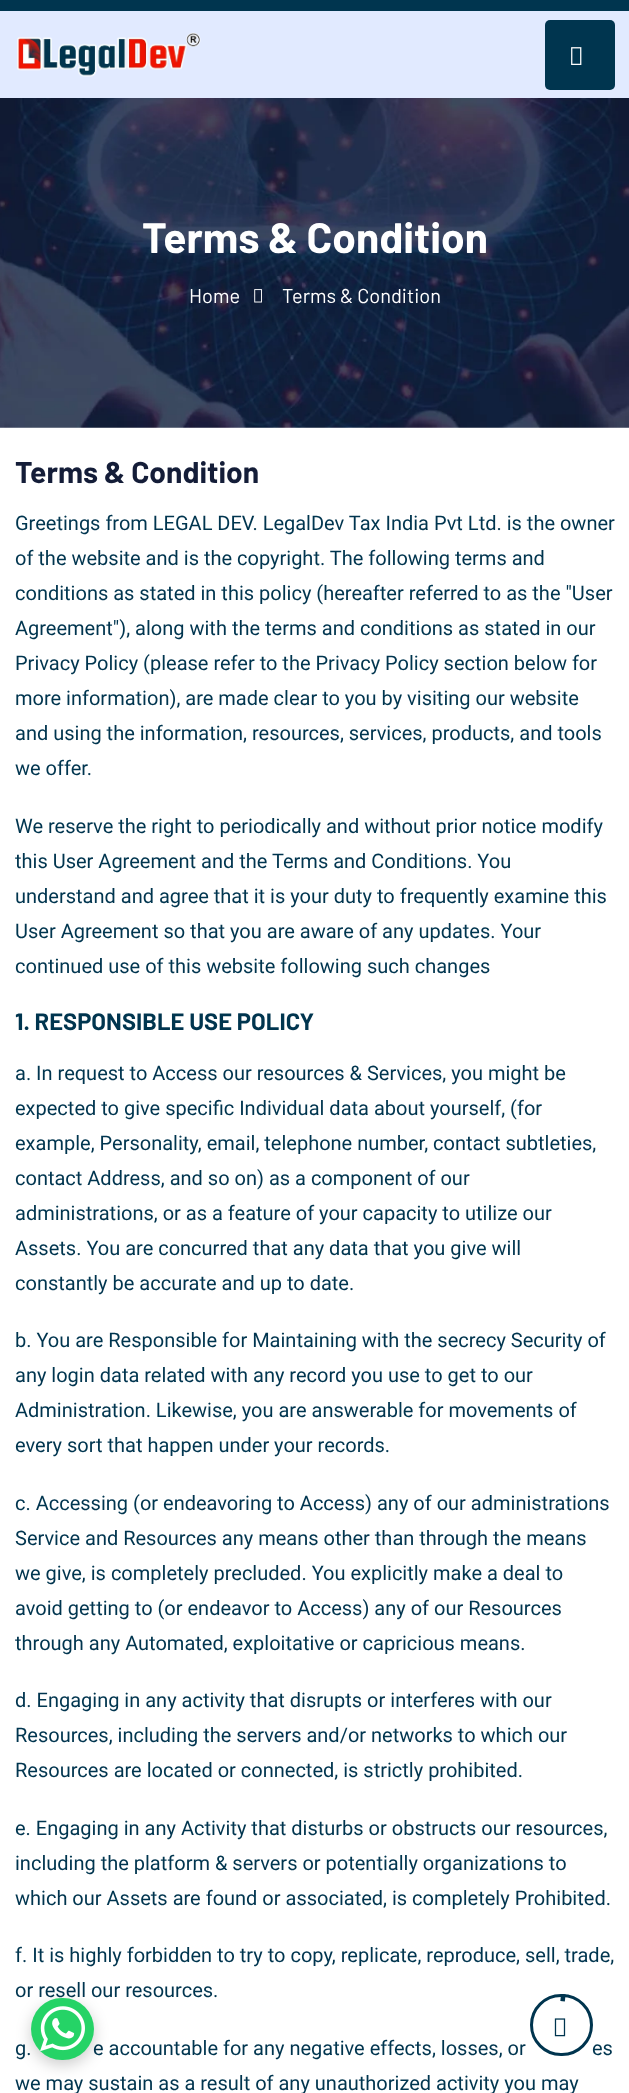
<!DOCTYPE html>
<meta charset="utf-8">
<style>body { margin: 0 } canvas { display: block }</style>
<canvas id="canvas" width="629" height="2093"></canvas>
<script type="module">
  const canvas = document.getElementById("canvas");
  const ctx = canvas.getContext("2d");
  ctx.miterLimit = 4;
  ctx.fontKerning = "normal";
  async function loadImage(src) {
    const img = new Image();
    img.src = src;
    await img.decode();
    return img;
  }

  ctx.fillStyle = "#ffffff";
  ctx.fillRect(0, 0, 629, 2093);
  ctx.fillStyle = "#00354f";
  ctx.fillRect(0, 0, 629, 11);
  ctx.fillStyle = "#e1eaff";
  ctx.fillRect(0, 11, 629, 87);
  ctx.drawImage(await loadImage("img1.png"), 17, 32, 184, 45);
  ctx.fillStyle = "#00354f";
  ctx.beginPath();
  ctx.roundRect(545, 20, 70, 70, 5);
  ctx.fill();
  ctx.drawImage(await loadImage("img2.png"), 571, 47, 11, 18);
  ctx.drawImage(await loadImage("img3.png"), 0, 98, 629, 330);
  ctx.font = "bold 42.5px Barlow";
  ctx.fillStyle = "#ffffff";
  ctx.fillText("Terms & Condition", 142, 253);
  ctx.font = "20px Barlow";
  ctx.fillText("Home", 189, 303);
  ctx.drawImage(await loadImage("img4.png"), 254, 289, 8, 14);
  ctx.fillText("Terms & Condition", 282, 303);
  ctx.font = "bold 30px Barlow";
  ctx.fillStyle = "#141d38";
  ctx.fillText("Terms & Condition", 15, 483);
  ctx.font = "20px Roboto";
  ctx.fillStyle = "#00354f";
  ctx.fillText("Greetings from LEGAL DEV. LegalDev Tax India Pvt Ltd. is the owner", 15, 530);
  ctx.fillText("of the website and is the copyright. The following terms and", 15, 565);
  ctx.fillText("conditions as stated in this policy (hereafter referred to as the \"User", 15, 600);
  ctx.fillText("Agreement\"), along with the terms and conditions as stated in our", 15, 635);
  ctx.fillText("Privacy Policy (please refer to the Privacy Policy section below for", 15, 670);
  ctx.fillText("more information), are made clear to you by visiting our website", 15, 705);
  ctx.fillText("and using the information, resources, services, products, and tools", 15, 740);
  ctx.fillText("we offer.", 15, 775);
  ctx.fillText("We reserve the right to periodically and without prior notice modify", 15, 833);
  ctx.fillText("this User Agreement and the Terms and Conditions. You", 15, 868);
  ctx.fillText("understand and agree that it is your duty to frequently examine this", 15, 903);
  ctx.fillText("User Agreement so that you are aware of any updates. Your", 15, 938);
  ctx.fillText("continued use of this website following such changes", 15, 973);
  ctx.font = "bold 23.75px Barlow";
  ctx.fillText("1. RESPONSIBLE USE POLICY", 15, 1030);
  ctx.font = "20px Roboto";
  ctx.fillText("a. In request to Access our resources & Services, you might be", 15, 1080);
  ctx.fillText("expected to give specific Individual data about yourself, (for", 15, 1115);
  ctx.fillText("example, Personality, email, telephone number, contact subtleties,", 15, 1150);
  ctx.fillText("contact Address, and so on) as a component of our", 15, 1185);
  ctx.fillText("administrations, or as a feature of your capacity to utilize our", 15, 1220);
  ctx.fillText("Assets. You are concurred that any data that you give will", 15, 1255);
  ctx.fillText("constantly be accurate and up to date.", 15, 1290);
  ctx.fillText("b. You are Responsible for Maintaining with the secrecy Security of", 15, 1347);
  ctx.fillText("any login data related with any record you use to get to our", 15, 1382);
  ctx.fillText("Administration. Likewise, you are answerable for movements of", 15, 1417);
  ctx.fillText("every sort that happen under your records.", 15, 1452);
  ctx.fillText("c. Accessing (or endeavoring to Access) any of our administrations", 15, 1510);
  ctx.fillText("Service and Resources any means other than through the means", 15, 1545);
  ctx.fillText("we give, is completely precluded. You explicitly make a deal to", 15, 1580);
  ctx.fillText("avoid getting to (or endeavor to Access) any of our Resources", 15, 1615);
  ctx.fillText("through any Automated, exploitative or capricious means.", 15, 1650);
  ctx.fillText("d. Engaging in any activity that disrupts or interferes with our", 15, 1707);
  ctx.fillText("Resources, including the servers and/or networks to which our", 15, 1742);
  ctx.fillText("Resources are located or connected, is strictly prohibited.", 15, 1777);
  ctx.fillText("e. Engaging in any Activity that disturbs or obstructs our resources,", 15, 1835);
  ctx.fillText("including the platform & servers or potentially organizations to", 15, 1870);
  ctx.fillText("which our Assets are found or associated, is completely Prohibited.", 15, 1905);
  ctx.fillText("f. It is highly forbidden to try to copy, replicate, reproduce, sell, trade,", 15, 1962);
  ctx.fillText("or resell our resources.", 15, 1997);
  ctx.fillText("g.", 15, 2055);
  ctx.fillText("e accountable for any negative effects, losses, or", 93, 2055);
  ctx.fillText("es", 592, 2055);
  ctx.fillText("we may sustain as a result of any unauthorized activity you may", 15, 2090);
  ctx.save();
  ctx.beginPath();
  ctx.roundRect(530, 1994, 63, 62, 31);
  ctx.clip();
  ctx.beginPath();
  ctx.moveTo(561, 1995);
  ctx.lineTo(565.5, 1995.5);
  ctx.strokeStyle = "#00354f";
  ctx.lineWidth = 12.3;
  ctx.stroke();
  ctx.restore();
  ctx.beginPath();
  ctx.roundRect(531.5, 1995.5, 60, 59, 29.5);
  ctx.strokeStyle = "#00354f";
  ctx.lineWidth = 3;
  ctx.stroke();
  ctx.drawImage(await loadImage("img5.png"), 554, 2018, 12, 19);
  ctx.fillStyle = "rgba(0, 0, 0, 0.2)";
  ctx.filter = "blur(7.5px)";
  ctx.beginPath();
  ctx.roundRect(31, 2003, 63, 62, 31);
  ctx.fill();
  ctx.filter = "none";
  ctx.fillStyle = "#25d366";
  ctx.beginPath();
  ctx.roundRect(31, 1998, 63, 62, 31);
  ctx.fill();
  ctx.drawImage(await loadImage("img6.png"), 40, 2006, 45, 45);
</script>
